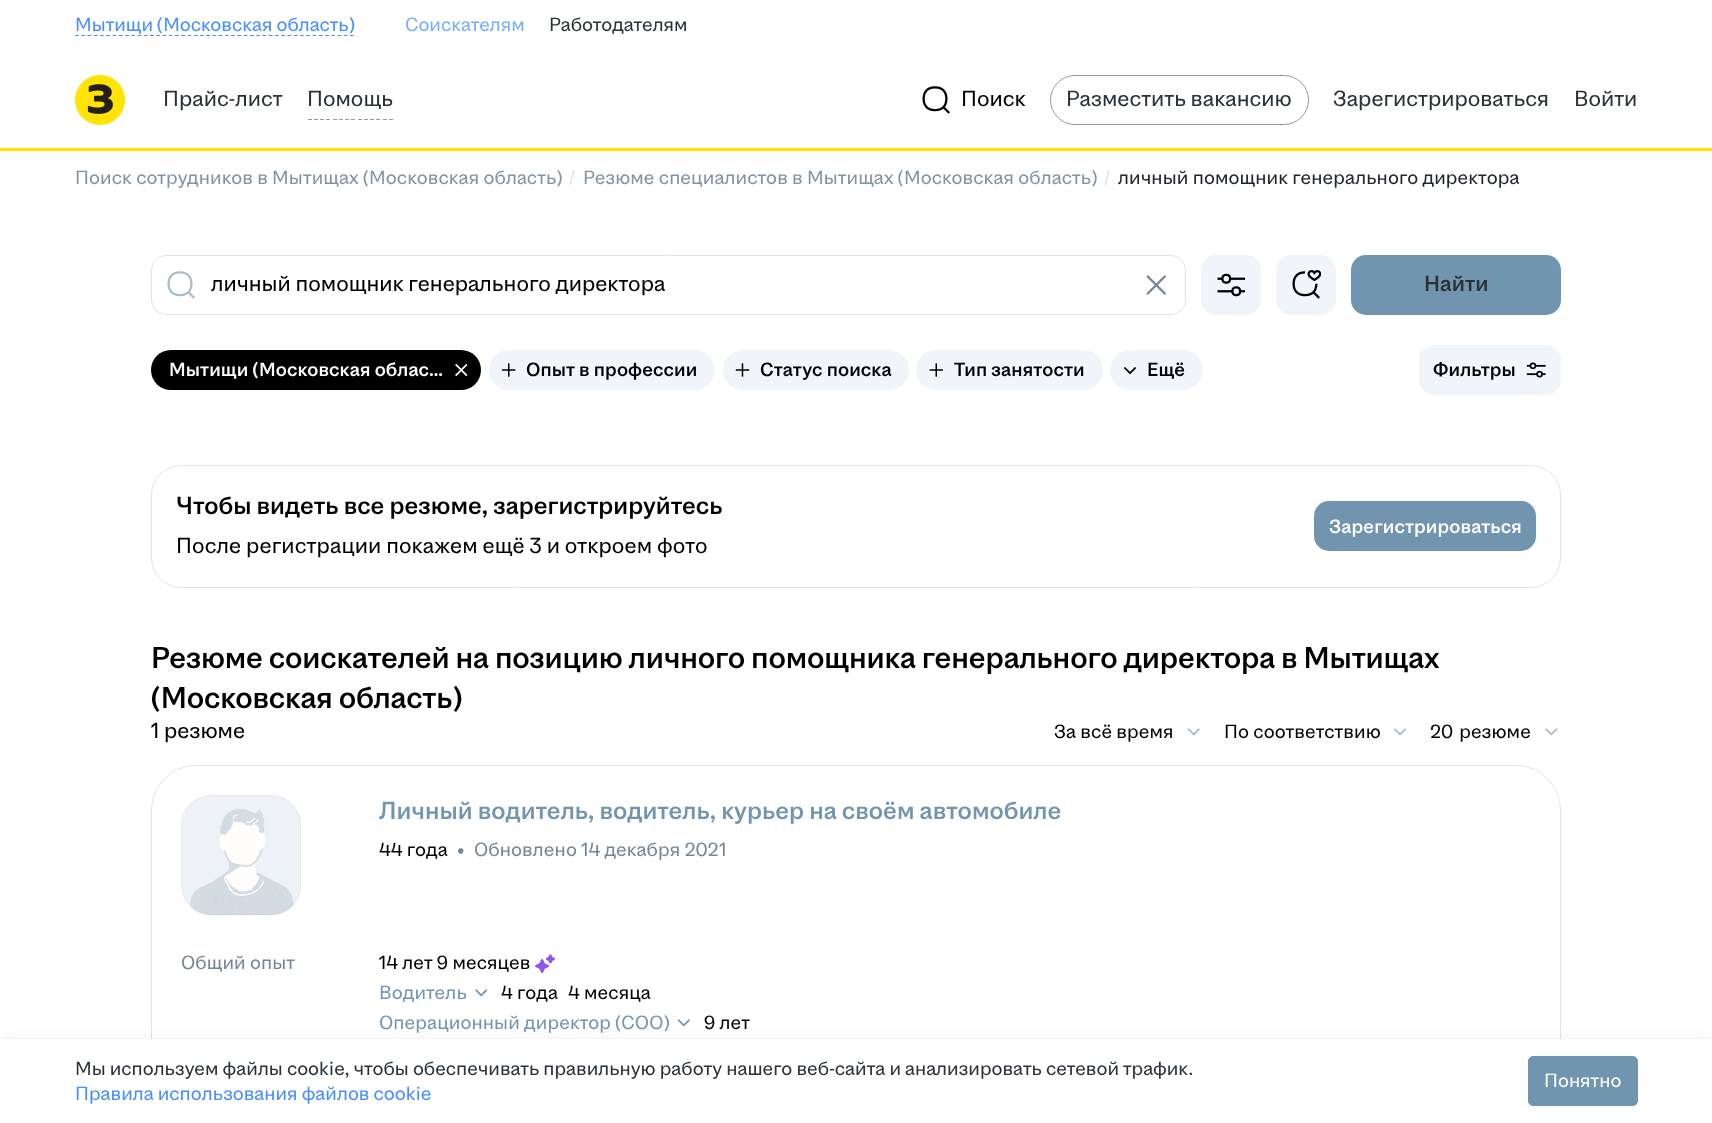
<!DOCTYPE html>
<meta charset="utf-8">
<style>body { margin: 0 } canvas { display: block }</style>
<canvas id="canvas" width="1712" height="1123"></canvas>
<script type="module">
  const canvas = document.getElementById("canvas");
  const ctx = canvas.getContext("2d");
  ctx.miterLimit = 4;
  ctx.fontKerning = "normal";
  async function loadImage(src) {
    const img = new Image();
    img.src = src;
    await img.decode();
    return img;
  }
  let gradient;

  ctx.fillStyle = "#ffffff";
  ctx.fillRect(0, 0, 1712, 1123);
  ctx.font = "17.5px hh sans";
  ctx.fillStyle = "#468ffd";
  ctx.fillText("Мытищи (Московская область)", 75, 31);
  ctx.beginPath();
  ctx.moveTo(75, 35.5);
  ctx.lineTo(354.5, 35.5);
  ctx.strokeStyle = "#468ffd";
  ctx.lineWidth = 1.2;
  ctx.setLineDash([3.75, 2.5]);
  ctx.stroke();
  ctx.fillStyle = "#76adfe";
  ctx.fillText("Соискателям", 405, 31);
  ctx.fillStyle = "#2a3137";
  ctx.fillText("Работодателям", 549, 31);
  ctx.fillStyle = "#ffe000";
  ctx.fillRect(0, 148, 1712, 3);
  ctx.drawImage(await loadImage("img1.png"), 75, 75, 50, 50);
  ctx.font = "20px hh sans";
  ctx.fillStyle = "#2a3137";
  ctx.fillText("Прайс-лист", 163, 106);
  gradient = ctx.createLinearGradient(308, 119, 314, 119);
  gradient.addColorStop(0, "#95989b");
  gradient.addColorStop(0.6, "#95989b");
  gradient.addColorStop(0.6, "#ffffff");
  gradient.addColorStop(1, "#ffffff");
  ctx.fillStyle = gradient;
  ctx.fillRect(308, 119, 6, 1);
  gradient = ctx.createLinearGradient(314, 119, 320, 119);
  gradient.addColorStop(0, "#95989b");
  gradient.addColorStop(0.6, "#95989b");
  gradient.addColorStop(0.6, "#ffffff");
  gradient.addColorStop(1, "#ffffff");
  ctx.fillStyle = gradient;
  ctx.fillRect(314, 119, 6, 1);
  gradient = ctx.createLinearGradient(320, 119, 326, 119);
  gradient.addColorStop(0, "#95989b");
  gradient.addColorStop(0.6, "#95989b");
  gradient.addColorStop(0.6, "#ffffff");
  gradient.addColorStop(1, "#ffffff");
  ctx.fillStyle = gradient;
  ctx.fillRect(320, 119, 6, 1);
  gradient = ctx.createLinearGradient(326, 119, 333, 119);
  gradient.addColorStop(0, "#95989b");
  gradient.addColorStop(0.6, "#95989b");
  gradient.addColorStop(0.6, "#ffffff");
  gradient.addColorStop(1, "#ffffff");
  ctx.fillStyle = gradient;
  ctx.fillRect(326, 119, 7, 1);
  gradient = ctx.createLinearGradient(333, 119, 339, 119);
  gradient.addColorStop(0, "#95989b");
  gradient.addColorStop(0.6, "#95989b");
  gradient.addColorStop(0.6, "#ffffff");
  gradient.addColorStop(1, "#ffffff");
  ctx.fillStyle = gradient;
  ctx.fillRect(333, 119, 6, 1);
  gradient = ctx.createLinearGradient(339, 119, 345, 119);
  gradient.addColorStop(0, "#95989b");
  gradient.addColorStop(0.6, "#95989b");
  gradient.addColorStop(0.6, "#ffffff");
  gradient.addColorStop(1, "#ffffff");
  ctx.fillStyle = gradient;
  ctx.fillRect(339, 119, 6, 1);
  gradient = ctx.createLinearGradient(345, 119, 351, 119);
  gradient.addColorStop(0, "#95989b");
  gradient.addColorStop(0.6, "#95989b");
  gradient.addColorStop(0.6, "#ffffff");
  gradient.addColorStop(1, "#ffffff");
  ctx.fillStyle = gradient;
  ctx.fillRect(345, 119, 6, 1);
  gradient = ctx.createLinearGradient(351, 119, 358, 119);
  gradient.addColorStop(0, "#95989b");
  gradient.addColorStop(0.6, "#95989b");
  gradient.addColorStop(0.6, "#ffffff");
  gradient.addColorStop(1, "#ffffff");
  ctx.fillStyle = gradient;
  ctx.fillRect(351, 119, 7, 1);
  gradient = ctx.createLinearGradient(358, 119, 364, 119);
  gradient.addColorStop(0, "#95989b");
  gradient.addColorStop(0.6, "#95989b");
  gradient.addColorStop(0.6, "#ffffff");
  gradient.addColorStop(1, "#ffffff");
  ctx.fillStyle = gradient;
  ctx.fillRect(358, 119, 6, 1);
  gradient = ctx.createLinearGradient(364, 119, 370, 119);
  gradient.addColorStop(0, "#95989b");
  gradient.addColorStop(0.6, "#95989b");
  gradient.addColorStop(0.6, "#ffffff");
  gradient.addColorStop(1, "#ffffff");
  ctx.fillStyle = gradient;
  ctx.fillRect(364, 119, 6, 1);
  gradient = ctx.createLinearGradient(370, 119, 376, 119);
  gradient.addColorStop(0, "#95989b");
  gradient.addColorStop(0.6, "#95989b");
  gradient.addColorStop(0.6, "#ffffff");
  gradient.addColorStop(1, "#ffffff");
  ctx.fillStyle = gradient;
  ctx.fillRect(370, 119, 6, 1);
  gradient = ctx.createLinearGradient(376, 119, 383, 119);
  gradient.addColorStop(0, "#95989b");
  gradient.addColorStop(0.6, "#95989b");
  gradient.addColorStop(0.6, "#ffffff");
  gradient.addColorStop(1, "#ffffff");
  ctx.fillStyle = gradient;
  ctx.fillRect(376, 119, 7, 1);
  gradient = ctx.createLinearGradient(383, 119, 389, 119);
  gradient.addColorStop(0, "#95989b");
  gradient.addColorStop(0.6, "#95989b");
  gradient.addColorStop(0.6, "#ffffff");
  gradient.addColorStop(1, "#ffffff");
  ctx.fillStyle = gradient;
  ctx.fillRect(383, 119, 6, 1);
  gradient = ctx.createLinearGradient(389, 119, 395, 119);
  gradient.addColorStop(0, "#95989b");
  gradient.addColorStop(0.6, "#95989b");
  gradient.addColorStop(0.6, "#ffffff");
  gradient.addColorStop(1, "#ffffff");
  ctx.fillStyle = gradient;
  ctx.fillRect(389, 119, 5, 1);
  ctx.fillStyle = "#2a3137";
  ctx.fillText("Помощь", 307, 106);
  ctx.drawImage(await loadImage("img2.png"), 922, 86, 28, 28);
  ctx.fillStyle = "#000000";
  ctx.fillText("Поиск", 961, 106);
  ctx.beginPath();
  ctx.roundRect(1050.5, 75.5, 258, 49, 24.5);
  ctx.strokeStyle = "#95989b";
  ctx.lineWidth = 1;
  ctx.setLineDash([]);
  ctx.stroke();
  ctx.fillStyle = "#2a3137";
  ctx.fillText("Разместить вакансию", 1066, 106);
  ctx.fillText("Зарегистрироваться", 1333, 106);
  ctx.fillText("Войти", 1574, 106);
  ctx.letterSpacing = "0.1px";
  ctx.font = "17.5px hh sans";
  ctx.fillStyle = "#8293a2";
  ctx.fillText("Поиск сотрудников в Мытищах (Московская область)", 75, 184);
  ctx.fillStyle = "#dce3eb";
  ctx.fillText("/", 569, 183);
  ctx.fillStyle = "#8293a2";
  ctx.fillText("Резюме специалистов в Мытищах (Московская область)", 583, 184);
  ctx.fillStyle = "#dce3eb";
  ctx.fillText("/", 1104, 183);
  ctx.fillStyle = "#20262b";
  ctx.fillText("личный помощник генерального директора", 1118, 184);
  ctx.beginPath();
  ctx.roundRect(151.5, 255.5, 1034, 59, 14.5);
  ctx.strokeStyle = "#dce3eb";
  ctx.stroke();
  ctx.drawImage(await loadImage("img3.png"), 167, 271, 28, 28);
  ctx.letterSpacing = "0px";
  ctx.font = "20px hh sans";
  ctx.fillStyle = "#000000";
  ctx.fillText("личный помощник генерального директора", 211, 291);
  ctx.drawImage(await loadImage("img4.png"), 1146, 275, 21, 20);
  ctx.fillStyle = "#f1f4f9";
  ctx.beginPath();
  ctx.roundRect(1201, 255, 60, 60, 15);
  ctx.fill();
  ctx.drawImage(await loadImage("img5.png"), 1217, 273, 28, 24);
  ctx.beginPath();
  ctx.roundRect(1276, 255, 60, 60, 15);
  ctx.fill();
  ctx.drawImage(await loadImage("img6.png"), 1292, 270, 29, 29);
  ctx.fillStyle = "#7195af";
  ctx.beginPath();
  ctx.roundRect(1351, 255, 210, 60, 15);
  ctx.fill();
  ctx.font = "500 20px hh sans";
  ctx.fillStyle = "#2a3137";
  ctx.fillText("Найти", 1424, 291);
  ctx.fillStyle = "#000000";
  ctx.beginPath();
  ctx.roundRect(151, 350, 330, 40, 20);
  ctx.fill();
  ctx.letterSpacing = "0.1px";
  ctx.font = "500 17.5px hh sans";
  ctx.fillStyle = "#ffffff";
  ctx.fillText("Мытищи (Московская облас…", 169, 376);
  ctx.drawImage(await loadImage("img7.png"), 455, 363, 13, 14);
  ctx.fillStyle = "#f1f4f9";
  ctx.beginPath();
  ctx.roundRect(489, 350, 226, 40, 20);
  ctx.fill();
  ctx.drawImage(await loadImage("img8.png"), 502, 363, 14, 14);
  ctx.fillStyle = "#000000";
  ctx.fillText("Опыт в профессии", 526, 376);
  ctx.fillStyle = "#f1f4f9";
  ctx.beginPath();
  ctx.roundRect(723, 350, 186, 40, 20);
  ctx.fill();
  ctx.drawImage(await loadImage("img9.png"), 735, 363, 15, 14);
  ctx.fillStyle = "#000000";
  ctx.fillText("Статус поиска", 760, 376);
  ctx.fillStyle = "#f1f4f9";
  ctx.beginPath();
  ctx.roundRect(916, 350, 187, 40, 20);
  ctx.fill();
  ctx.drawImage(await loadImage("img10.png"), 929, 363, 14, 14);
  ctx.fillStyle = "#000000";
  ctx.fillText("Тип занятости", 954, 376);
  ctx.fillStyle = "#f1f4f9";
  ctx.beginPath();
  ctx.roundRect(1110, 350, 93, 40, 20);
  ctx.fill();
  ctx.drawImage(await loadImage("img11.png"), 1123, 367, 14, 8);
  ctx.fillStyle = "#000000";
  ctx.fillText("Ещё", 1147, 376);
  ctx.fillStyle = "#f1f4f9";
  ctx.beginPath();
  ctx.roundRect(1419, 345, 142, 50, 15);
  ctx.fill();
  ctx.fillStyle = "#000000";
  ctx.fillText("Фильтры", 1433, 376);
  ctx.drawImage(await loadImage("img12.png"), 1526, 362, 20, 16);
  ctx.fillStyle = "#7195af";
  ctx.beginPath();
  ctx.roundRect(1314, 501, 222, 50, 15);
  ctx.fill();
  ctx.beginPath();
  ctx.roundRect(151.5, 465.5, 1409, 122, 29.5);
  ctx.stroke();
  ctx.letterSpacing = "0px";
  ctx.font = "500 22.5px hh sans";
  ctx.fillStyle = "#000000";
  ctx.fillText("Чтобы видеть все резюме, зарегистрируйтесь", 176, 514);
  ctx.letterSpacing = "0.1px";
  ctx.font = "20px hh sans";
  ctx.fillText("После регистрации покажем ещё 3 и откроем фото", 176, 553);
  ctx.font = "500 17.5px hh sans";
  ctx.fillStyle = "#ffffff";
  ctx.fillText("Зарегистрироваться", 1329, 533);
  ctx.letterSpacing = "-0.2px";
  ctx.font = "500 27.5px hh sans";
  ctx.fillStyle = "#000000";
  ctx.fillText("Резюме соискателей на позицию личного помощника генерального директора в Мытищах", 151, 668);
  ctx.fillText("(Московская область)", 151, 708);
  ctx.letterSpacing = "0px";
  ctx.font = "20px hh sans";
  ctx.fillText("1 резюме", 151, 738);
  ctx.letterSpacing = "0.1px";
  ctx.font = "17.5px hh sans";
  ctx.fillText("За всё время", 1054, 738);
  ctx.drawImage(await loadImage("img13.png"), 1187, 728, 13, 8);
  ctx.fillText("По соответствию", 1224, 738);
  ctx.drawImage(await loadImage("img14.png"), 1393, 728, 14, 8);
  ctx.fillText("20  резюме", 1430, 738);
  ctx.drawImage(await loadImage("img15.png"), 1545, 728, 13, 8);
  ctx.drawImage(await loadImage("img16.png"), 181, 795, 120, 120);
  ctx.beginPath();
  ctx.roundRect(181.5, 795.5, 119, 119, 29.5);
  ctx.strokeStyle = "rgba(106, 120, 133, 0.08)";
  ctx.stroke();
  ctx.drawImage(await loadImage("img17.png"), 535, 954, 20, 20);
  ctx.drawImage(await loadImage("img18.png"), 475, 989, 13, 8);
  ctx.drawImage(await loadImage("img19.png"), 677, 1019, 13, 8);
  ctx.beginPath();
  ctx.roundRect(151.5, 765.5, 1409, 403, 44.5);
  ctx.strokeStyle = "#dce3eb";
  ctx.stroke();
  ctx.letterSpacing = "0px";
  ctx.font = "500 22.5px hh sans";
  ctx.fillStyle = "#7195af";
  ctx.fillText("Личный водитель, водитель, курьер на своём автомобиле", 379, 819);
  ctx.letterSpacing = "0.1px";
  ctx.font = "17.5px hh sans";
  ctx.fillStyle = "#000000";
  ctx.fillText("44 года", 379, 856);
  ctx.fillStyle = "#768694";
  ctx.fillText("•", 456, 856);
  ctx.fillText("Обновлено 14 декабря 2021", 474, 856);
  ctx.fillText("Общий опыт", 181, 969);
  ctx.fillStyle = "#000000";
  ctx.fillText("14 лет 9 месяцев", 379, 969);
  ctx.fillStyle = "#7195af";
  ctx.fillText("Водитель", 379, 999);
  ctx.fillStyle = "#000000";
  ctx.fillText("4 года", 501, 999);
  ctx.fillText("4 месяца", 568, 999);
  ctx.fillStyle = "#7195af";
  ctx.fillText("Операционный директор (COO)", 379, 1029);
  ctx.fillStyle = "#000000";
  ctx.fillText("9 лет", 704, 1029);
  ctx.fillStyle = "rgba(0, 0, 0, 0.15)";
  ctx.filter = "blur(7.5px)";
  ctx.beginPath();
  ctx.rect(0, 1044, 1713, 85);
  ctx.fill();
  ctx.filter = "none";
  ctx.fillStyle = "#ffffff";
  ctx.fillRect(0, 1039, 1712, 84);
  ctx.letterSpacing = "0px";
  ctx.fillStyle = "#2a3137";
  ctx.fillText("Мы используем файлы cookie, чтобы обеспечивать правильную работу нашего веб-сайта и анализировать сетевой трафик.", 75, 1075);
  ctx.fillStyle = "#468ffd";
  ctx.fillText("Правила использования файлов cookie", 75, 1100);
  ctx.fillStyle = "#7195af";
  ctx.beginPath();
  ctx.roundRect(1528.5, 1056.5, 109, 49, 4.5);
  ctx.fill();
  ctx.strokeStyle = "#7195af";
  ctx.stroke();
  ctx.fillStyle = "#ffffff";
  ctx.fillText("Понятно", 1544, 1087);
</script>
